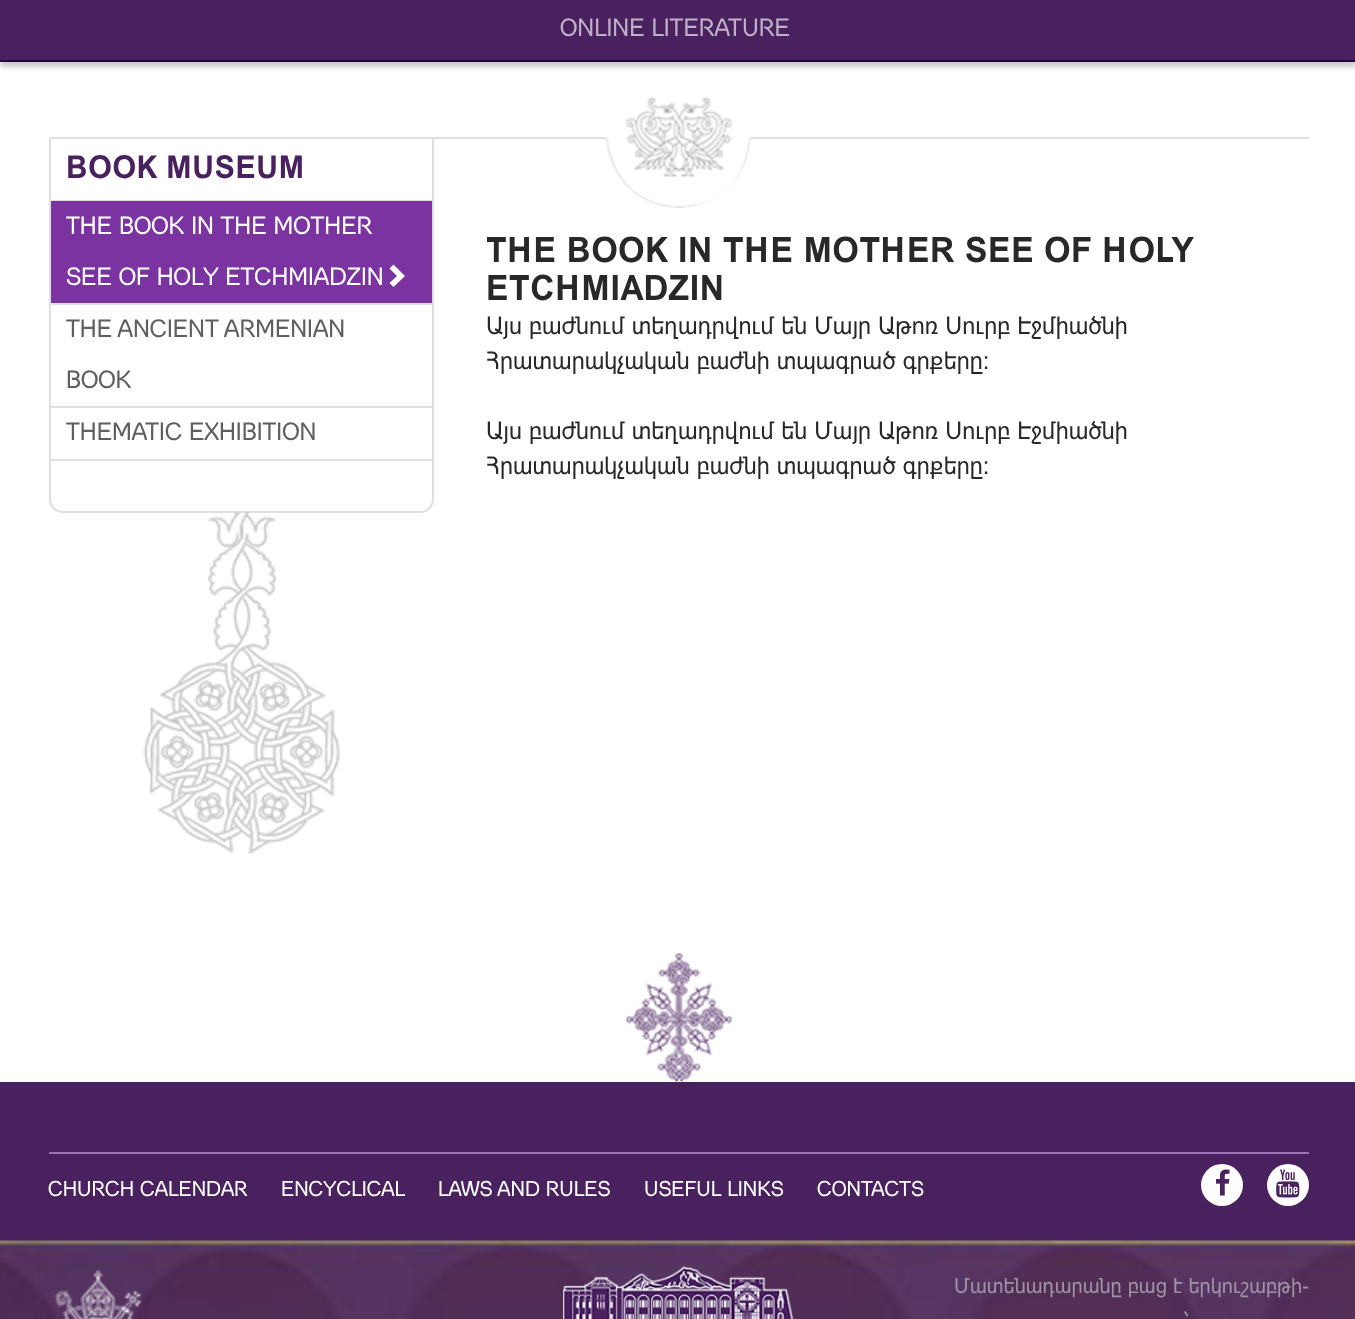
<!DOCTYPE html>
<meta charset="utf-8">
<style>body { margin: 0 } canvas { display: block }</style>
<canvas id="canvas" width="1355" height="1319"></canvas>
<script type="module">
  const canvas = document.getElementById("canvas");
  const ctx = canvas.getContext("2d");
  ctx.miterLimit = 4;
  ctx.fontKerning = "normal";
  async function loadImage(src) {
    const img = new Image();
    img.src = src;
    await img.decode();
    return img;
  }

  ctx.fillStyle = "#ffffff";
  ctx.fillRect(0, 0, 1355, 1319);
  ctx.fillStyle = "#dfdfdf";
  ctx.fillRect(49, 137, 1260, 2);
  ctx.fillStyle = "#ffffff";
  ctx.beginPath();
  ctx.arc(678.5, 135.5, 72.5, 0, Math.PI * 2);
  ctx.fill();
  ctx.fillStyle = "rgba(0, 0, 0, 0.2)";
  ctx.filter = "blur(2.5px)";
  ctx.beginPath();
  ctx.rect(0, -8, 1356, 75);
  ctx.fill();
  ctx.filter = "none";
  ctx.fillStyle = "#49215f";
  ctx.fillRect(0, 0, 1355, 60);
  ctx.fillStyle = "#2b0540";
  ctx.fillRect(0, 60, 1355, 2);
  ctx.font = "24.5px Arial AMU";
  ctx.fillStyle = "#bfb0c8";
  ctx.fillText("ONLINE LITERATURE", 560, 36);
  ctx.drawImage(await loadImage("img1.png"), 605, 138, 146, 70);
  ctx.drawImage(await loadImage("img2.png"), 626, 97, 106, 80);
  ctx.fillStyle = "#dfdfdf";
  ctx.fillRect(432, 138, 2, 62);
  ctx.fillRect(49, 138, 2, 62);
  ctx.font = "bold 31.5px Arial AMU";
  ctx.fillStyle = "#49215f";
  ctx.fillText("BOOK MUSEUM", 66, 178);
  ctx.beginPath();
  ctx.roundRect(50, 201, 383, 311, [0, 0, 13, 13]);
  ctx.strokeStyle = "#dfdfdf";
  ctx.lineWidth = 2;
  ctx.stroke();
  ctx.fillStyle = "#dfdfdf";
  ctx.fillRect(51, 303, 381, 2);
  ctx.fillStyle = "#7a33a1";
  ctx.fillRect(51, 201, 381, 102);
  ctx.font = "24.5px Arial AMU";
  ctx.fillStyle = "#ffffff";
  ctx.fillText("THE BOOK IN THE MOTHER", 66, 234);
  ctx.fillText("SEE OF HOLY ETCHMIADZIN", 66, 285);
  ctx.beginPath();
  ctx.moveTo(405, 276);
  ctx.lineTo(393.5, 287);
  ctx.lineTo(389.5, 283);
  ctx.lineTo(397, 276);
  ctx.lineTo(389.5, 268.5);
  ctx.lineTo(393.5, 264.5);
  ctx.closePath();
  ctx.fill();
  ctx.fillStyle = "#dfdfdf";
  ctx.fillRect(51, 406, 381, 2);
  ctx.fillStyle = "#605f5f";
  ctx.fillText("THE ANCIENT ARMENIAN", 66, 337);
  ctx.fillText("BOOK", 66, 388);
  ctx.fillStyle = "#dfdfdf";
  ctx.fillRect(51, 459, 381, 2);
  ctx.fillStyle = "#605f5f";
  ctx.fillText("THEMATIC EXHIBITION", 66, 440);
  ctx.drawImage(await loadImage("img3.png"), 143, 512, 197, 342);
  ctx.save();
  ctx.beginPath();
  ctx.rect(487, 231, 822, 252);
  ctx.clip();
  ctx.font = "bold 35px Arial AMU";
  ctx.fillStyle = "#282828";
  ctx.fillText("THE BOOK IN THE MOTHER SEE OF HOLY", 486, 262);
  ctx.restore();
  ctx.font = "bold 35px Arial AMU";
  ctx.fillStyle = "#282828";
  ctx.fillText("ETCHMIADZIN", 486, 300);
  ctx.font = "24.5px Arial AMU";
  ctx.fillText("Այս բաժնում տեղադրվում են Մայր Աթոռ Սուրբ Էջմիածնի", 486, 334);
  ctx.fillText("Հրատարակչական բաժնի տպագրած գրքերը:", 486, 369);
  ctx.fillText("Այս բաժնում տեղադրվում են Մայր Աթոռ Սուրբ Էջմիածնի", 486, 439);
  ctx.fillText("Հրատարակչական բաժնի տպագրած գրքերը:", 486, 474);
  ctx.fillStyle = "#49215f";
  ctx.fillRect(0, 1082, 1355, 159);
  ctx.drawImage(await loadImage("img4.png"), 626, 953, 106, 129);
  ctx.fillStyle = "#9f74b7";
  ctx.fillRect(49, 1152, 1260, 2);
  ctx.font = "21px Arial AMU";
  ctx.fillStyle = "#ffffff";
  ctx.fillText("CHURCH CALENDAR", 48, 1196);
  ctx.fillText("ENCYCLICAL", 281, 1196);
  ctx.fillText("LAWS AND RULES", 438, 1196);
  ctx.fillText("USEFUL LINKS", 644, 1196);
  ctx.fillText("CONTACTS", 817, 1196);
  ctx.beginPath();
  ctx.arc(1222, 1185, 21, 0, Math.PI * 2);
  ctx.fill();
  ctx.drawImage(await loadImage("img5.png"), 1216, 1169, 14, 27);
  ctx.beginPath();
  ctx.arc(1288, 1185, 21, 0, Math.PI * 2);
  ctx.fill();
  ctx.drawImage(await loadImage("img6.png"), 1276, 1169, 24, 29);
  ctx.drawImage(await loadImage("img7.png"), 0, 1240, 1355, 79);
  ctx.drawImage(await loadImage("img8.png"), 54, 1270, 88, 49);
  ctx.drawImage(await loadImage("img9.png"), 563, 1266, 231, 53);
  ctx.fillStyle = "#a093a6";
  ctx.fillText("Մատենադարանը բաց է երկուշաբթի-", 954, 1293);
  ctx.fillText("`", 1183, 1328);
</script>
